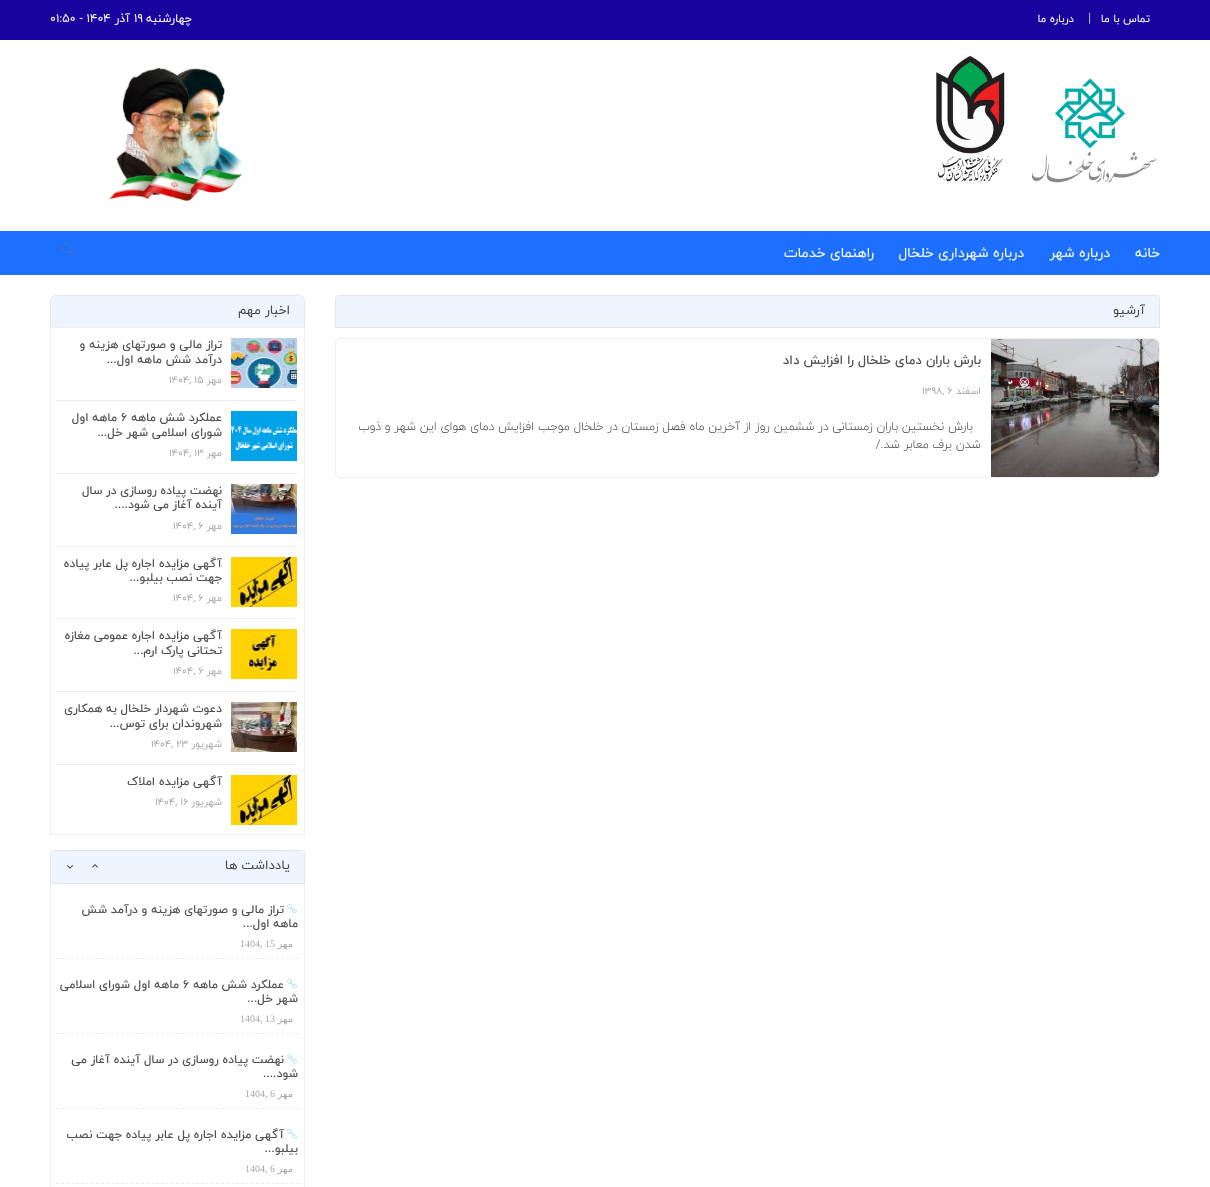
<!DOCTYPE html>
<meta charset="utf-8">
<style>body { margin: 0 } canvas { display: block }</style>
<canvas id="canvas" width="1210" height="1187"></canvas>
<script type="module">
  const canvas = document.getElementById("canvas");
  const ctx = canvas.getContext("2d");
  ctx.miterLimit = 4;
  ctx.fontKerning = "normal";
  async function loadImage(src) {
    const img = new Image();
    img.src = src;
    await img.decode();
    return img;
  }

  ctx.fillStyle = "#ffffff";
  ctx.fillRect(0, 0, 1210, 1187);
  ctx.fillStyle = "#1904a0";
  ctx.fillRect(0, 0, 1210, 40);
  ctx.direction = "rtl";
  ctx.font = "11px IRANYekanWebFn";
  ctx.fillStyle = "#ffffff";
  ctx.fillText("تماس با ما", 1150, 22);
  ctx.direction = "ltr";
  ctx.font = "13px IRANYekanWebFn";
  ctx.fillStyle = "#aec1e0";
  ctx.fillText("|", 1088, 22);
  ctx.direction = "rtl";
  ctx.font = "11px IRANYekanWebFn";
  ctx.fillStyle = "#ffffff";
  ctx.fillText("درباره ما", 1074, 22);
  ctx.font = "12px IRANYekanWebFn";
  ctx.fillText("چهارشنبه", 192, 22);
  ctx.direction = "ltr";
  ctx.fillText("19", 134, 22);
  ctx.direction = "rtl";
  ctx.fillText("آذر", 130, 22);
  ctx.direction = "ltr";
  ctx.fillText("01:50 - 1404", 50, 22);
  ctx.drawImage(await loadImage("img1.png"), 936, 56, 221, 127);
  ctx.drawImage(await loadImage("img2.png"), 109, 68, 134, 133);
  ctx.fillStyle = "#1c6fff";
  ctx.fillRect(0, 231, 1210, 44);
  ctx.direction = "rtl";
  ctx.font = "14px IRANYekanWebFn";
  ctx.fillStyle = "#ffffff";
  ctx.fillText("خانه", 1160, 257);
  ctx.fillText("درباره شهر", 1110, 257);
  ctx.fillText("درباره شهرداری خلخال", 1024, 257);
  ctx.fillText("راهنمای خدمات", 874, 257);
  ctx.drawImage(await loadImage("img3.png"), 61, 242, 13, 14);
  ctx.fillStyle = "#eff5ff";
  ctx.beginPath();
  ctx.roundRect(335, 295, 825, 33, [6, 6, 0, 0]);
  ctx.fill();
  ctx.strokeStyle = "rgba(0, 0, 0, 0.06)";
  ctx.strokeRect(335.5, 295.5, 824, 32);
  ctx.font = "13px IRANYekanWebFn";
  ctx.fillStyle = "#454545";
  ctx.fillText("آرشیو", 1145, 314);
  ctx.beginPath();
  ctx.roundRect(335.5, 338.5, 824, 139, 5.5);
  ctx.strokeStyle = "#f0f0f0";
  ctx.stroke();
  ctx.drawImage(await loadImage("img4.png"), 991, 339, 168, 138);
  ctx.font = "500 13px IRANYekanWebFn";
  ctx.fillStyle = "#515151";
  ctx.fillText("بارش باران دمای خلخال را افزایش داد", 981, 364);
  ctx.font = "10px IRANYekanWebFn";
  ctx.fillStyle = "#a7a7a7";
  ctx.fillText("اسفند", 981, 394);
  ctx.direction = "ltr";
  ctx.fillText("1398, 6", 922, 394);
  ctx.direction = "rtl";
  ctx.font = "300 12px IRANYekanWebFn";
  ctx.fillStyle = "#454545";
  ctx.fillText("بارش نخستین باران زمستانی در ششمین روز از آخرین ماه فصل زمستان در خلخال موجب افزایش دمای هوای این شهر و ذوب", 973, 430);
  ctx.fillText("شدن برف معابر شد./", 981, 448);
  ctx.fillStyle = "#eff5ff";
  ctx.beginPath();
  ctx.roundRect(50, 295, 255, 32, [6, 6, 0, 0]);
  ctx.fill();
  ctx.fillStyle = "rgba(0, 0, 0, 0.06)";
  ctx.beginPath();
  ctx.moveTo(56, 295);
  ctx.lineTo(299, 295);
  ctx.bezierCurveTo(302, 295, 305, 298, 305, 301);
  ctx.lineTo(305, 327);
  ctx.lineTo(50, 327);
  ctx.lineTo(50, 301);
  ctx.bezierCurveTo(50, 298, 53, 295, 56, 295);
  ctx.closePath();
  ctx.moveTo(56, 296);
  ctx.lineTo(299, 296);
  ctx.bezierCurveTo(302, 296, 304, 298, 304, 301);
  ctx.lineTo(304, 327);
  ctx.lineTo(51, 327);
  ctx.lineTo(51, 301);
  ctx.bezierCurveTo(51, 298, 53, 296, 56, 296);
  ctx.closePath();
  ctx.fill("evenodd");
  ctx.font = "13px IRANYekanWebFn";
  ctx.fillStyle = "#454545";
  ctx.fillText("اخبار مهم", 290, 314);
  ctx.strokeRect(50.5, 327.5, 254, 507);
  ctx.fillStyle = "#eeeeee";
  ctx.fillRect(56, 400, 241, 1);
  ctx.drawImage(await loadImage("img5.png"), 231, 338, 66, 50);
  ctx.font = "500 12px IRANYekanWebFn";
  ctx.fillStyle = "#515151";
  ctx.fillText("تراز مالی و صورتهای هزینه و", 222, 348);
  ctx.fillText("درآمد شش ماهه اول...", 222, 363);
  ctx.font = "10px IRANYekanWebFn";
  ctx.fillStyle = "#a7a7a7";
  ctx.fillText("مهر", 222, 383);
  ctx.direction = "ltr";
  ctx.fillText("1404, 15", 169, 383);
  ctx.fillStyle = "#eeeeee";
  ctx.fillRect(56, 473, 241, 1);
  ctx.drawImage(await loadImage("img6.png"), 231, 411, 66, 50);
  ctx.direction = "rtl";
  ctx.font = "500 12px IRANYekanWebFn";
  ctx.fillStyle = "#515151";
  ctx.fillText("عملکرد شش ماهه", 222, 421);
  ctx.direction = "ltr";
  ctx.fillText("6", 121, 421);
  ctx.direction = "rtl";
  ctx.fillText("ماهه اول", 117, 421);
  ctx.fillText("شورای اسلامی شهر خل...", 222, 436);
  ctx.font = "10px IRANYekanWebFn";
  ctx.fillStyle = "#a7a7a7";
  ctx.fillText("مهر", 222, 456);
  ctx.direction = "ltr";
  ctx.fillText("1404, 13", 169, 456);
  ctx.fillStyle = "#eeeeee";
  ctx.fillRect(56, 546, 241, 1);
  ctx.drawImage(await loadImage("img7.png"), 231, 484, 66, 50);
  ctx.direction = "rtl";
  ctx.font = "500 12px IRANYekanWebFn";
  ctx.fillStyle = "#515151";
  ctx.fillText("نهضت پیاده روسازی در سال", 222, 494);
  ctx.fillText("آینده آغاز می شود....", 222, 508);
  ctx.font = "10px IRANYekanWebFn";
  ctx.fillStyle = "#a7a7a7";
  ctx.fillText("مهر", 222, 529);
  ctx.direction = "ltr";
  ctx.fillText("1404, 6", 173, 529);
  ctx.fillStyle = "#eeeeee";
  ctx.fillRect(56, 618, 241, 1);
  ctx.drawImage(await loadImage("img8.png"), 231, 557, 66, 50);
  ctx.direction = "rtl";
  ctx.font = "500 12px IRANYekanWebFn";
  ctx.fillStyle = "#515151";
  ctx.fillText("آگهی مزایده اجاره پل عابر پیاده", 222, 567);
  ctx.fillText("جهت نصب بیلبو...", 222, 581);
  ctx.font = "10px IRANYekanWebFn";
  ctx.fillStyle = "#a7a7a7";
  ctx.fillText("مهر", 222, 601);
  ctx.direction = "ltr";
  ctx.fillText("1404, 6", 173, 601);
  ctx.fillStyle = "#eeeeee";
  ctx.fillRect(56, 691, 241, 1);
  ctx.drawImage(await loadImage("img9.png"), 231, 629, 66, 50);
  ctx.direction = "rtl";
  ctx.font = "500 12px IRANYekanWebFn";
  ctx.fillStyle = "#515151";
  ctx.fillText("آگهی مزایده اجاره عمومی مغازه", 222, 639);
  ctx.fillText("تحتانی پارک ارم...", 222, 654);
  ctx.font = "10px IRANYekanWebFn";
  ctx.fillStyle = "#a7a7a7";
  ctx.fillText("مهر", 222, 674);
  ctx.direction = "ltr";
  ctx.fillText("1404, 6", 173, 674);
  ctx.fillStyle = "#eeeeee";
  ctx.fillRect(56, 764, 241, 1);
  ctx.drawImage(await loadImage("img10.png"), 231, 702, 66, 50);
  ctx.direction = "rtl";
  ctx.font = "500 12px IRANYekanWebFn";
  ctx.fillStyle = "#515151";
  ctx.fillText("دعوت شهردار خلخال به همکاری", 222, 712);
  ctx.fillText("شهروندان برای توس...", 222, 727);
  ctx.font = "10px IRANYekanWebFn";
  ctx.fillStyle = "#a7a7a7";
  ctx.fillText("شهریور", 222, 747);
  ctx.direction = "ltr";
  ctx.fillText("1404, 23", 151, 747);
  ctx.drawImage(await loadImage("img8.png"), 231, 775, 66, 50);
  ctx.direction = "rtl";
  ctx.font = "500 12px IRANYekanWebFn";
  ctx.fillStyle = "#515151";
  ctx.fillText("آگهی مزایده املاک", 222, 785);
  ctx.font = "10px IRANYekanWebFn";
  ctx.fillStyle = "#a7a7a7";
  ctx.fillText("شهریور", 222, 805);
  ctx.direction = "ltr";
  ctx.fillText("1404, 16", 155, 805);
  ctx.fillStyle = "#eff5ff";
  ctx.beginPath();
  ctx.roundRect(50, 850, 255, 34, [6, 6, 0, 0]);
  ctx.fill();
  ctx.strokeStyle = "rgba(0, 0, 0, 0.06)";
  ctx.strokeRect(50.5, 850.5, 254, 33);
  ctx.direction = "rtl";
  ctx.font = "13px IRANYekanWebFn";
  ctx.fillStyle = "#454545";
  ctx.fillText("یادداشت ها", 290, 869);
  ctx.fillStyle = "#f0f0f0";
  ctx.beginPath();
  ctx.moveTo(305, 884);
  ctx.lineTo(305, 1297);
  ctx.lineTo(304, 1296);
  ctx.lineTo(304, 884);
  ctx.closePath();
  ctx.fill();
  ctx.beginPath();
  ctx.moveTo(50, 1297);
  ctx.lineTo(50, 884);
  ctx.lineTo(51, 884);
  ctx.lineTo(51, 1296);
  ctx.closePath();
  ctx.fill();
  ctx.drawImage(await loadImage("img11.png"), 92, 864, 6, 4);
  ctx.drawImage(await loadImage("img12.png"), 67, 865, 6, 4);
  ctx.beginPath();
  ctx.moveTo(56, 958.5);
  ctx.lineTo(299, 958.5);
  ctx.strokeStyle = "#eeeeee";
  ctx.setLineDash([3, 2]);
  ctx.stroke();
  ctx.drawImage(await loadImage("img13.png"), 287, 904, 10, 10);
  ctx.font = "500 12px IRANYekanWebFn";
  ctx.fillStyle = "#515151";
  ctx.fillText("تراز مالی و صورتهای هزینه و درآمد شش", 284, 913);
  ctx.fillText("ماهه اول...", 298, 927);
  ctx.font = "10px DejaVu Sans";
  ctx.fillStyle = "#a7a7a7";
  ctx.fillText("مهر", 293, 947);
  ctx.direction = "ltr";
  ctx.font = "10px Liberation Serif";
  ctx.fillText("1404, 15", 240, 947);
  ctx.beginPath();
  ctx.moveTo(56, 1033.5);
  ctx.lineTo(299, 1033.5);
  ctx.stroke();
  ctx.drawImage(await loadImage("img13.png"), 287, 979, 10, 10);
  ctx.direction = "rtl";
  ctx.font = "500 12px IRANYekanWebFn";
  ctx.fillStyle = "#515151";
  ctx.fillText("عملکرد شش ماهه", 284, 988);
  ctx.direction = "ltr";
  ctx.fillText("6", 183, 988);
  ctx.direction = "rtl";
  ctx.fillText("ماهه اول شورای اسلامی", 179, 988);
  ctx.fillText("شهر خل...", 298, 1002);
  ctx.font = "10px DejaVu Sans";
  ctx.fillStyle = "#a7a7a7";
  ctx.fillText("مهر", 293, 1022);
  ctx.direction = "ltr";
  ctx.font = "10px Liberation Serif";
  ctx.fillText("1404, 13", 240, 1022);
  ctx.beginPath();
  ctx.moveTo(56, 1108.5);
  ctx.lineTo(299, 1108.5);
  ctx.stroke();
  ctx.drawImage(await loadImage("img13.png"), 287, 1054, 10, 10);
  ctx.direction = "rtl";
  ctx.font = "500 12px IRANYekanWebFn";
  ctx.fillStyle = "#515151";
  ctx.fillText("نهضت پیاده روسازی در سال آینده آغاز می", 284, 1063);
  ctx.fillText("شود....", 298, 1077);
  ctx.font = "10px DejaVu Sans";
  ctx.fillStyle = "#a7a7a7";
  ctx.fillText("مهر", 293, 1097);
  ctx.direction = "ltr";
  ctx.font = "10px Liberation Serif";
  ctx.fillText("1404, 6", 245, 1097);
  ctx.beginPath();
  ctx.moveTo(56, 1183.5);
  ctx.lineTo(299, 1183.5);
  ctx.stroke();
  ctx.drawImage(await loadImage("img13.png"), 287, 1129, 10, 10);
  ctx.direction = "rtl";
  ctx.font = "500 12px IRANYekanWebFn";
  ctx.fillStyle = "#515151";
  ctx.fillText("آگهی مزایده اجاره پل عابر پیاده جهت نصب", 284, 1138);
  ctx.fillText("بیلبو...", 298, 1152);
  ctx.font = "10px DejaVu Sans";
  ctx.fillStyle = "#a7a7a7";
  ctx.fillText("مهر", 293, 1172);
  ctx.direction = "ltr";
  ctx.font = "10px Liberation Serif";
  ctx.fillText("1404, 6", 245, 1172);
</script>
